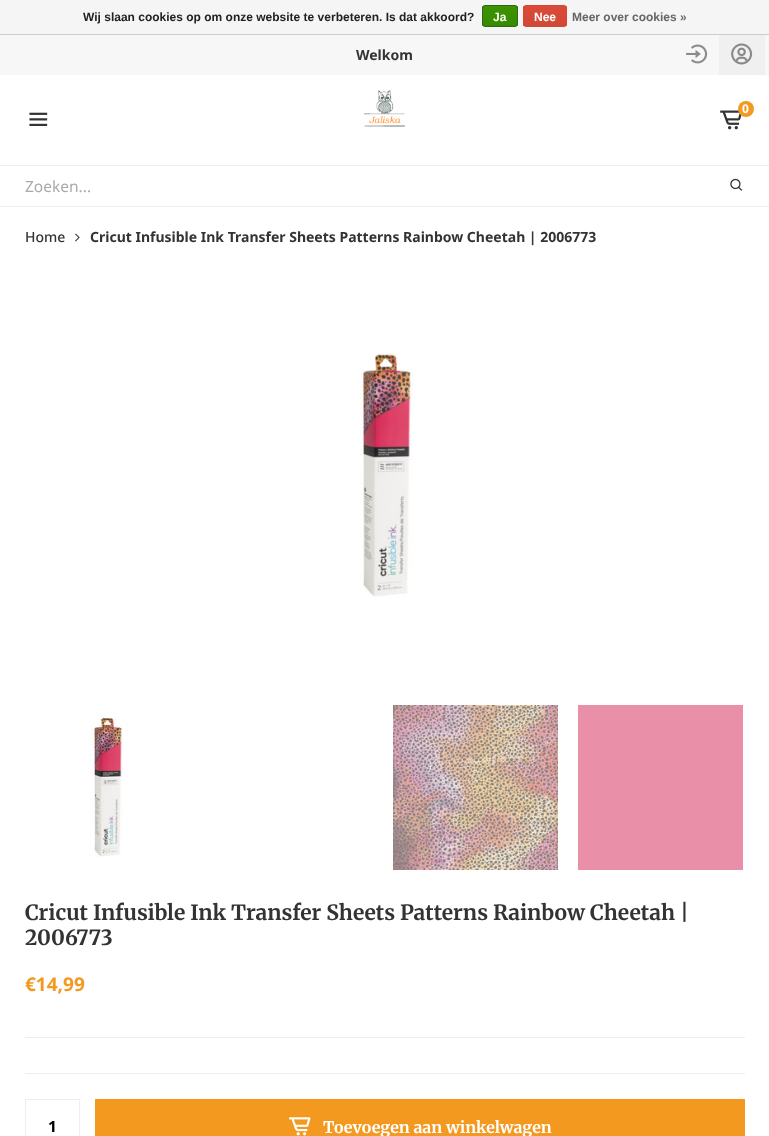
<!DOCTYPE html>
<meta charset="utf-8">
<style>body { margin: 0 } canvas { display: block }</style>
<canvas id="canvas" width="769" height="1136"></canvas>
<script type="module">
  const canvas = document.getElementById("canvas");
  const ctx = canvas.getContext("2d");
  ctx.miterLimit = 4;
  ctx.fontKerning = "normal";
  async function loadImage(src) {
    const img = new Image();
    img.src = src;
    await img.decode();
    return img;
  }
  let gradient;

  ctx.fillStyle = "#ffffff";
  ctx.fillRect(0, 0, 769, 1136);
  ctx.fillStyle = "#f5f5f5";
  ctx.fillRect(0, 0, 769, 34);
  ctx.fillStyle = "#cccccc";
  ctx.fillRect(0, 34, 769, 1);
  ctx.font = "bold 12px Liberation Sans";
  ctx.fillStyle = "#222222";
  ctx.fillText("Wij slaan cookies op om onze website te verbeteren. Is dat akkoord?", 83, 21);
  ctx.save();
  ctx.beginPath();
  ctx.roundRect(482, 5, 36, 22, 3);
  ctx.clip();
  gradient = ctx.createLinearGradient(500, 6, 500, 26);
  gradient.addColorStop(0, "#3c9300");
  gradient.addColorStop(1, "#398a00");
  ctx.fillStyle = gradient;
  ctx.fillRect(482, 6, 36, 20);
  ctx.restore();
  ctx.beginPath();
  ctx.roundRect(482.5, 5.5, 35, 21, 2.5);
  ctx.strokeStyle = "#29691d";
  ctx.stroke();
  ctx.fillStyle = "#ffffff";
  ctx.fillText("Ja", 493, 21);
  ctx.save();
  ctx.beginPath();
  ctx.roundRect(523, 5, 44, 22, 3);
  ctx.clip();
  gradient = ctx.createLinearGradient(545, 6, 545, 26);
  gradient.addColorStop(0, "#dc4a38");
  gradient.addColorStop(1, "#d14836");
  ctx.fillStyle = gradient;
  ctx.fillRect(523, 6, 44, 20);
  ctx.restore();
  ctx.beginPath();
  ctx.roundRect(523.5, 5.5, 43, 21, 2.5);
  ctx.strokeStyle = "#d14836";
  ctx.stroke();
  ctx.fillText("Nee", 534, 21);
  ctx.fillStyle = "#666666";
  ctx.fillText("Meer over cookies »", 572, 21);
  ctx.fillStyle = "#f7f7f7";
  ctx.fillRect(0, 35, 769, 40);
  ctx.font = "bold 14px Noto Sans";
  ctx.fillStyle = "#333333";
  ctx.fillText("Welkom", 356, 60);
  ctx.drawImage(await loadImage("img1.png"), 686, 44, 22, 20);
  ctx.fillStyle = "#f0f0f0";
  ctx.fillRect(719, 35, 46, 40);
  ctx.drawImage(await loadImage("img2.png"), 731, 43, 22, 22);
  ctx.drawImage(await loadImage("img3.png"), 364, 90, 41, 37);
  ctx.drawImage(await loadImage("img4.png"), 720, 110, 22, 20);
  ctx.fillStyle = "#f49920";
  ctx.beginPath();
  ctx.arc(746, 109, 8, 0, Math.PI * 2);
  ctx.fill();
  ctx.font = "bold 12px Noto Sans";
  ctx.fillStyle = "#ffffff";
  ctx.fillText("0", 742, 113);
  ctx.drawImage(await loadImage("img5.png"), 29, 112, 19, 14);
  ctx.fillStyle = "#eeeeee";
  ctx.fillRect(0, 165, 769, 1);
  ctx.fillRect(0, 206, 769, 1);
  ctx.font = "15.5px Noto Sans";
  ctx.fillStyle = "#aaaaaa";
  ctx.fillText("Zoeken...", 25, 192);
  ctx.drawImage(await loadImage("img6.png"), 730, 178, 13, 13);
  ctx.font = "500 14px Noto Sans";
  ctx.fillStyle = "#333333";
  ctx.fillText("Home", 25, 242);
  ctx.drawImage(await loadImage("img7.png"), 75, 233, 5, 9);
  ctx.font = "bold 14px Noto Sans";
  ctx.fillText("Cricut Infusible Ink Transfer Sheets Patterns Rainbow Cheetah | 2006773", 90, 242);
  ctx.drawImage(await loadImage("img8.png"), 359, 353, 54, 244);
  ctx.drawImage(await loadImage("img9.png"), 90, 718, 33, 139);
  ctx.drawImage(await loadImage("img10.png"), 393, 705, 165, 165);
  ctx.fillStyle = "#e98fa7";
  ctx.fillRect(578, 705, 165, 165);
  ctx.font = "bold 21px Merriweather";
  ctx.fillStyle = "#333333";
  ctx.fillText("Cricut Infusible Ink Transfer Sheets Patterns Rainbow Cheetah |", 25, 920);
  ctx.fillText("2006773", 25, 945);
  ctx.font = "bold 19px Noto Sans";
  ctx.fillStyle = "#f49920";
  ctx.fillText("€14,99", 25, 991);
  ctx.fillStyle = "#eeeeee";
  ctx.fillRect(25, 1037, 720, 1);
  ctx.fillRect(25, 1073, 720, 1);
  ctx.strokeStyle = "#eeeeee";
  ctx.strokeRect(25.5, 1099.5, 54, 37);
  ctx.font = "bold 15.5px Noto Sans";
  ctx.fillStyle = "#000000";
  ctx.fillText("1", 48, 1132);
  ctx.fillStyle = "#f49920";
  ctx.fillRect(95, 1099, 650, 37);
  ctx.drawImage(await loadImage("img11.png"), 289, 1117, 22, 19);
  ctx.font = "bold 16px Merriweather";
  ctx.fillStyle = "#ffffff";
  ctx.fillText("Toevoegen aan winkelwagen", 323, 1133);
</script>
